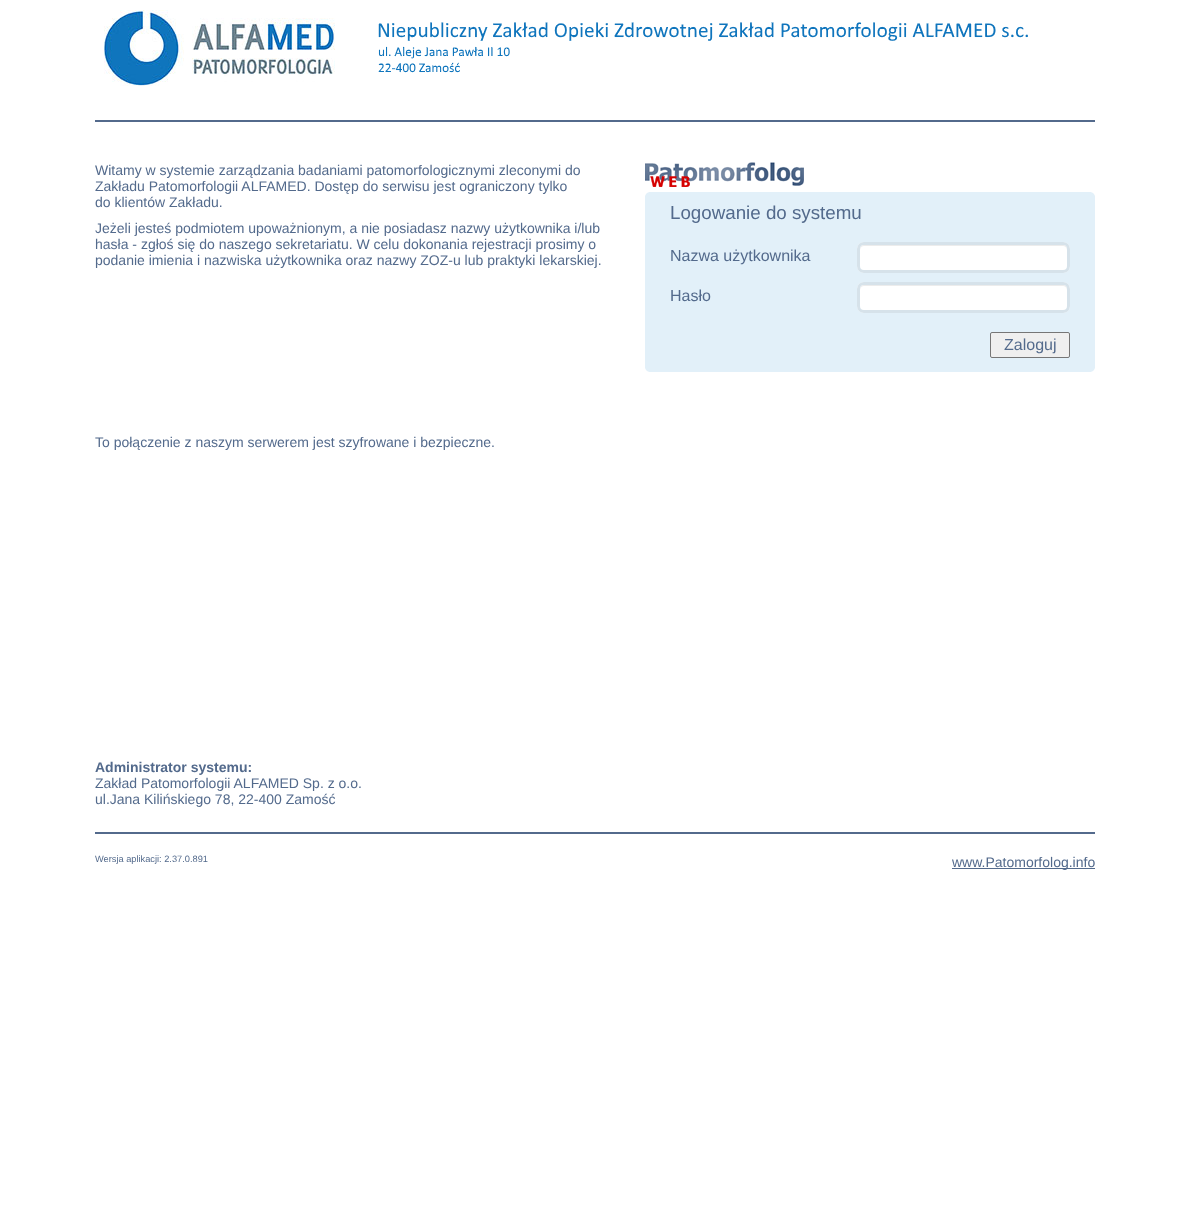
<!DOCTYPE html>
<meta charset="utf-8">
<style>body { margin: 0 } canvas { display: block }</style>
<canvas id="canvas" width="1190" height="1212"></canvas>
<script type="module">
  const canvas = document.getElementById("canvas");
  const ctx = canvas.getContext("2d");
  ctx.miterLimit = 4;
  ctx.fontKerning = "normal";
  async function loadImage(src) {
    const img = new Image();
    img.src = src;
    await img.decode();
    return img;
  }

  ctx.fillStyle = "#ffffff";
  ctx.fillRect(0, 0, 1190, 1212);
  ctx.drawImage(await loadImage("img1.png"), 104, 10, 924, 76);
  ctx.fillStyle = "#536a8c";
  ctx.fillRect(95, 120, 1000, 2);
  ctx.font = "14px Liberation Sans";
  ctx.fillText("Witamy w systemie zarządzania badaniami patomorfologicznymi zleconymi do", 95, 175);
  ctx.fillText("Zakładu Patomorfologii ALFAMED. Dostęp do serwisu jest ograniczony tylko", 95, 191);
  ctx.fillText("do klientów Zakładu.", 95, 207);
  ctx.fillText("Jeżeli jesteś podmiotem upoważnionym, a nie posiadasz nazwy użytkownika i/lub", 95, 233);
  ctx.fillText("hasła - zgłoś się do naszego sekretariatu. W celu dokonania rejestracji prosimy o", 95, 249);
  ctx.fillText("podanie imienia i nazwiska użytkownika oraz nazwy ZOZ-u lub praktyki lekarskiej.", 95, 265);
  ctx.drawImage(await loadImage("img2.png"), 645, 162, 159, 25);
  ctx.fillStyle = "#e2f0f9";
  ctx.fillRect(645, 192, 450, 180);
  ctx.drawImage(await loadImage("img3.png"), 645, 192, 4, 4);
  ctx.drawImage(await loadImage("img4.png"), 1091, 192, 4, 4);
  ctx.font = "18.75px Liberation Sans";
  ctx.fillStyle = "#536a8c";
  ctx.fillText("Logowanie do systemu", 670, 219);
  ctx.font = "16px Liberation Sans";
  ctx.fillText("Nazwa użytkownika", 670, 261);
  ctx.fillStyle = "#ffffff";
  ctx.beginPath();
  ctx.roundRect(857, 242, 213, 31, 7);
  ctx.fill();
  ctx.fillStyle = "#ececec";
  ctx.beginPath();
  ctx.moveTo(864, 246);
  ctx.lineTo(1063, 246);
  ctx.bezierCurveTo(1065, 246, 1067, 248, 1067, 250);
  ctx.lineTo(1067, 249);
  ctx.bezierCurveTo(1067, 247, 1065, 245, 1063, 245);
  ctx.lineTo(864, 245);
  ctx.bezierCurveTo(862, 245, 860, 247, 860, 249);
  ctx.lineTo(860, 250);
  ctx.bezierCurveTo(860, 248, 862, 246, 864, 246);
  ctx.closePath();
  ctx.fill();
  ctx.beginPath();
  ctx.roundRect(858.5, 243.5, 210, 28, 5.5);
  ctx.strokeStyle = "#d6e2ea";
  ctx.lineWidth = 3;
  ctx.stroke();
  ctx.fillStyle = "#536a8c";
  ctx.fillText("Hasło", 670, 301);
  ctx.fillStyle = "#ffffff";
  ctx.beginPath();
  ctx.roundRect(857, 282, 213, 31, 7);
  ctx.fill();
  ctx.fillStyle = "#ececec";
  ctx.beginPath();
  ctx.moveTo(864, 286);
  ctx.lineTo(1063, 286);
  ctx.bezierCurveTo(1065, 286, 1067, 288, 1067, 290);
  ctx.lineTo(1067, 289);
  ctx.bezierCurveTo(1067, 287, 1065, 285, 1063, 285);
  ctx.lineTo(864, 285);
  ctx.bezierCurveTo(862, 285, 860, 287, 860, 289);
  ctx.lineTo(860, 290);
  ctx.bezierCurveTo(860, 288, 862, 286, 864, 286);
  ctx.closePath();
  ctx.fill();
  ctx.beginPath();
  ctx.roundRect(858.5, 283.5, 210, 28, 5.5);
  ctx.stroke();
  ctx.fillStyle = "#efefef";
  ctx.beginPath();
  ctx.roundRect(990.5, 332.5, 79, 25, 1.5);
  ctx.fill();
  ctx.strokeStyle = "#767676";
  ctx.lineWidth = 1;
  ctx.stroke();
  ctx.fillStyle = "#536a8c";
  ctx.fillText("Zaloguj", 1004, 350);
  ctx.drawImage(await loadImage("img5.png"), 645, 368, 4, 4);
  ctx.drawImage(await loadImage("img6.png"), 1091, 368, 4, 4);
  ctx.font = "14px Liberation Sans";
  ctx.fillText("To połączenie z naszym serwerem jest szyfrowane i bezpieczne.", 95, 447);
  ctx.font = "bold 14px Liberation Sans";
  ctx.fillText("Administrator systemu:", 95, 772);
  ctx.font = "14px Liberation Sans";
  ctx.fillText("Zakład Patomorfologii ALFAMED Sp. z o.o.", 95, 788);
  ctx.fillText("ul.Jana Kilińskiego 78, 22-400 Zamość", 95, 804);
  ctx.fillRect(95, 832, 1000, 2);
  ctx.font = "9.25px Liberation Sans";
  ctx.fillText("Wersja aplikacji: 2.37.0.891", 95, 862);
  ctx.fillRect(952, 868, 143, 1);
  ctx.font = "14px Liberation Sans";
  ctx.fillText("www.Patomorfolog.info", 952, 867);
</script>
